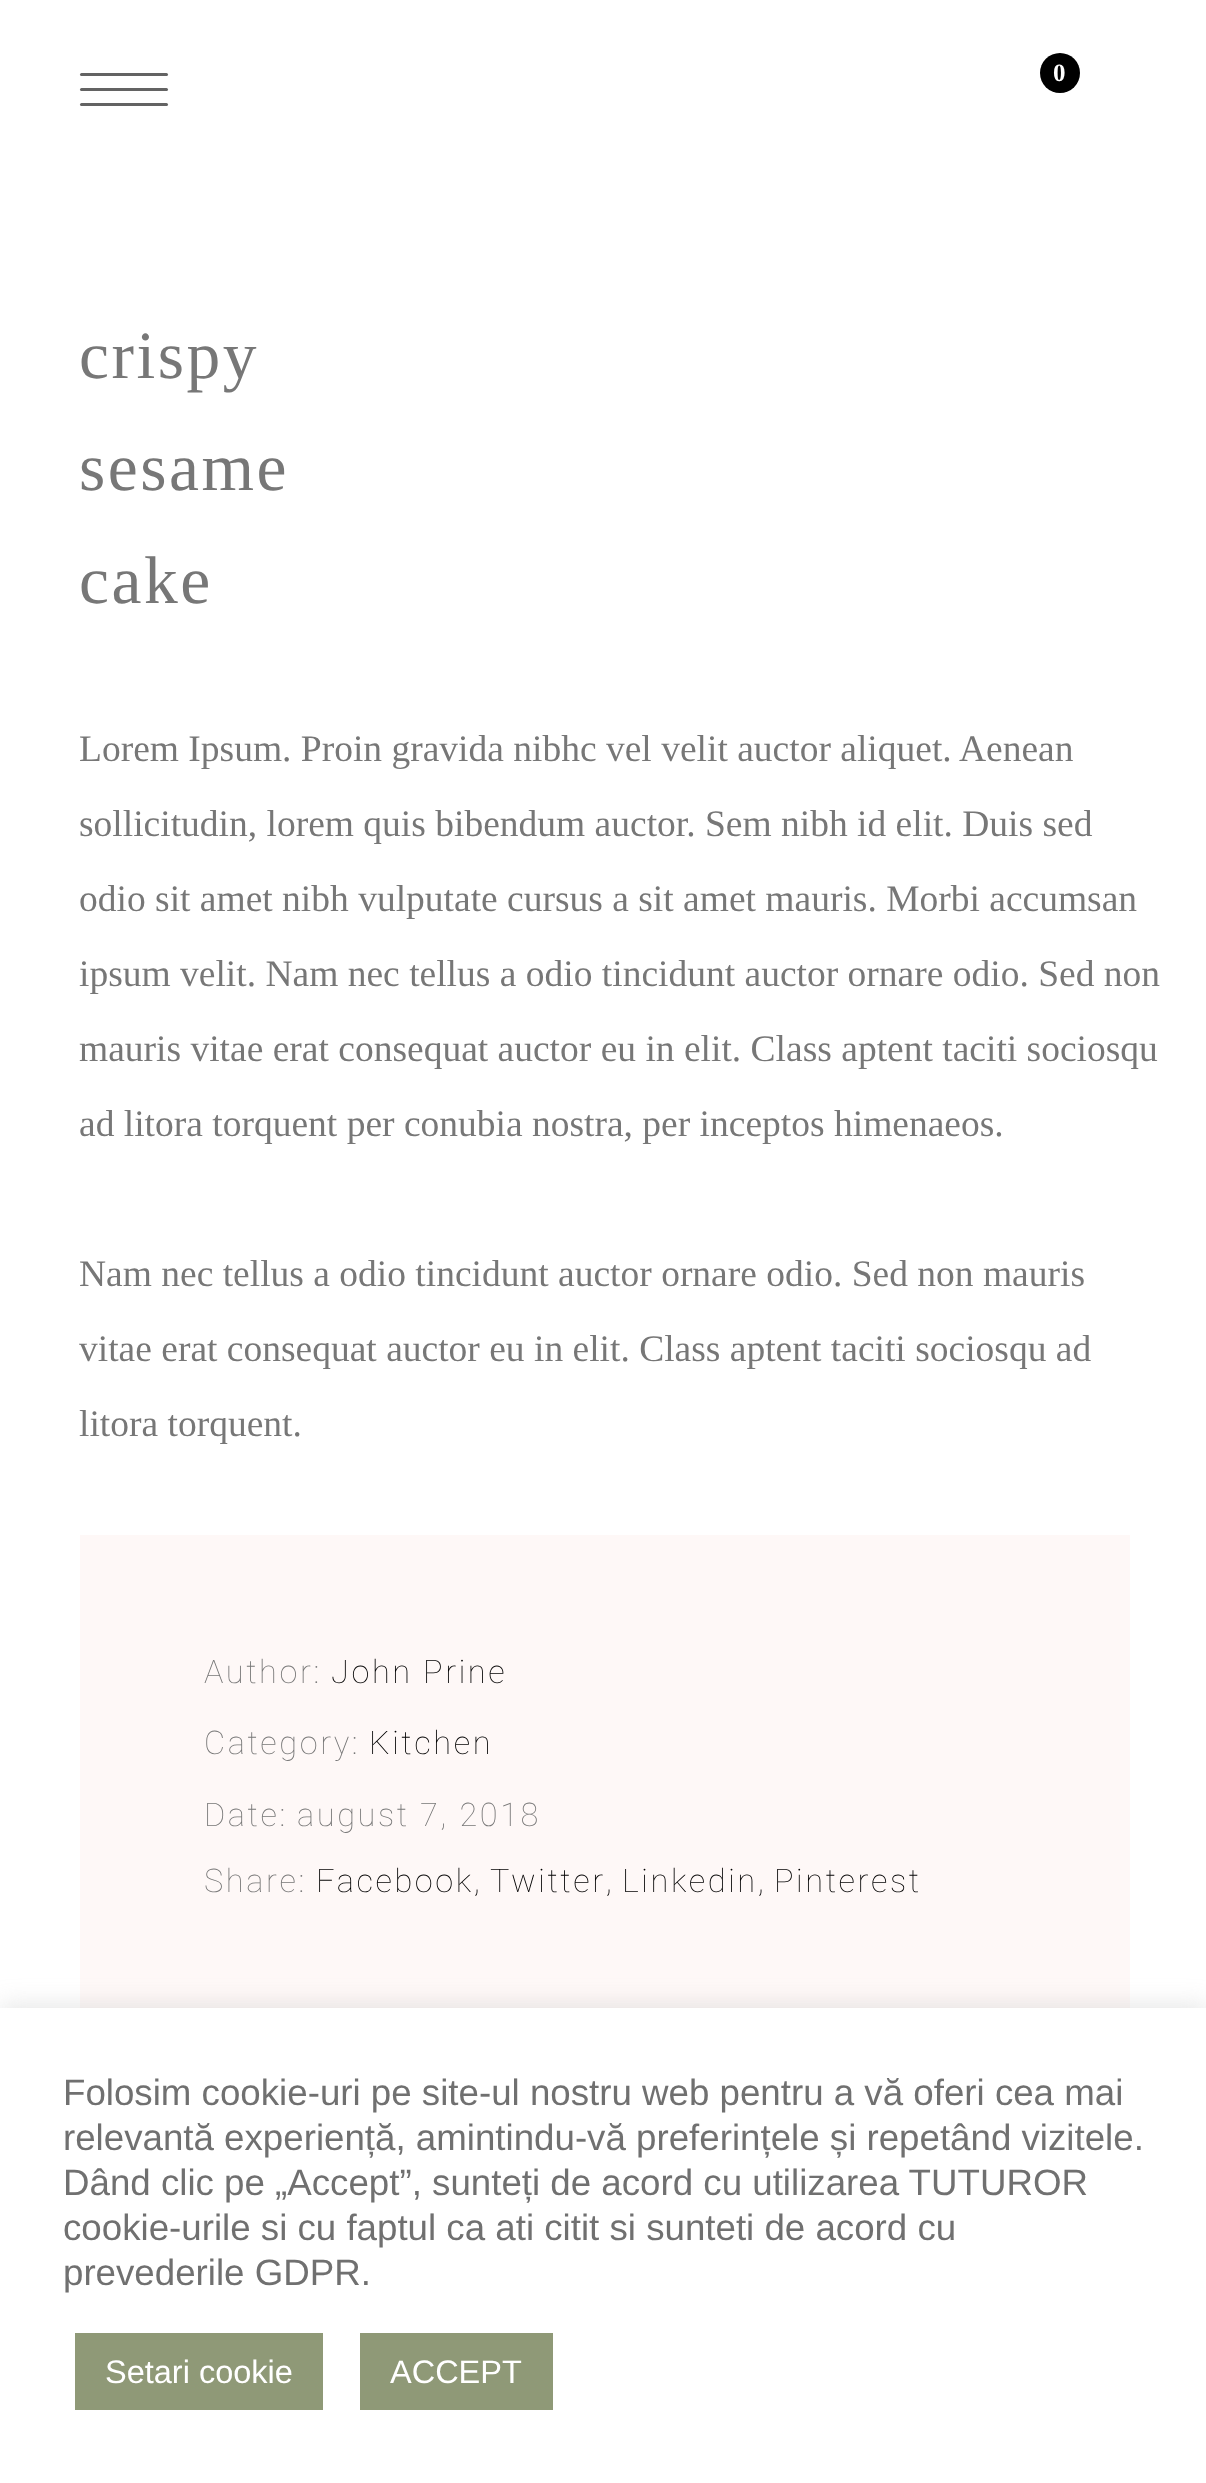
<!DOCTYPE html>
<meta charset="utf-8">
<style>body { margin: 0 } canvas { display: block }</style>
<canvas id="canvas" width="1206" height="2483"></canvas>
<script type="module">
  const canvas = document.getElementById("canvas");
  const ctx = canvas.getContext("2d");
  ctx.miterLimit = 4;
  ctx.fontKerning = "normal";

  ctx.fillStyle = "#ffffff";
  ctx.fillRect(0, 0, 1206, 2483);
  ctx.fillStyle = "#636363";
  ctx.beginPath();
  ctx.roundRect(80, 73, 88, 3, 1.5);
  ctx.fill();
  ctx.beginPath();
  ctx.roundRect(80, 88, 88, 3, 1.5);
  ctx.fill();
  ctx.beginPath();
  ctx.roundRect(80, 103, 88, 3, 1.5);
  ctx.fill();
  ctx.fillStyle = "#000000";
  ctx.beginPath();
  ctx.arc(1060, 73, 20, 0, Math.PI * 2);
  ctx.fill();
  ctx.font = "bold 25px Liberation Serif";
  ctx.fillStyle = "#ffffff";
  ctx.fillText("0", 1053, 81);
  ctx.letterSpacing = "2.5px";
  ctx.font = "67.5px Liberation Serif";
  ctx.fillStyle = "#777777";
  ctx.fillText("crispy", 79, 378);
  ctx.fillText("sesame", 79, 490);
  ctx.fillText("cake", 79, 603);
  ctx.letterSpacing = "0px";
  ctx.font = "37.5px Liberation Serif";
  ctx.fillText("Lorem Ipsum. Proin gravida nibhc vel velit auctor aliquet. Aenean", 79, 761);
  ctx.fillText("sollicitudin, lorem quis bibendum auctor. Sem nibh id elit. Duis sed", 79, 836);
  ctx.fillText("odio sit amet nibh vulputate cursus a sit amet mauris. Morbi accumsan", 79, 911);
  ctx.fillText("ipsum velit. Nam nec tellus a odio tincidunt auctor ornare odio. Sed non", 79, 986);
  ctx.fillText("mauris vitae erat consequat auctor eu in elit. Class aptent taciti sociosqu", 79, 1061);
  ctx.fillText("ad litora torquent per conubia nostra, per inceptos himenaeos.", 79, 1136);
  ctx.fillText("Nam nec tellus a odio tincidunt auctor ornare odio. Sed non mauris", 79, 1286);
  ctx.fillText("vitae erat consequat auctor eu in elit. Class aptent taciti sociosqu ad", 79, 1361);
  ctx.fillText("litora torquent.", 79, 1436);
  ctx.fillStyle = "#fef8f7";
  ctx.fillRect(80, 1535, 1050, 473);
  ctx.letterSpacing = "2.6px";
  ctx.font = "100 32.5px Heebo";
  ctx.fillStyle = "#777777";
  ctx.fillText("Author:", 204, 1683);
  ctx.fillStyle = "#000000";
  ctx.fillText("John Prine", 331, 1683);
  ctx.fillStyle = "#777777";
  ctx.fillText("Category:", 204, 1754);
  ctx.fillStyle = "#000000";
  ctx.fillText("Kitchen", 369, 1754);
  ctx.fillStyle = "#777777";
  ctx.fillText("Date:", 204, 1826);
  ctx.fillText("august 7, 2018", 297, 1826);
  ctx.fillText("Share:", 204, 1892);
  ctx.fillStyle = "#000000";
  ctx.fillText("Facebook,", 316, 1892);
  ctx.fillText("Twitter,", 490, 1892);
  ctx.fillText("Linkedin,", 622, 1892);
  ctx.fillText("Pinterest", 774, 1892);
  ctx.fillStyle = "rgba(172, 171, 171, 0.3)";
  ctx.filter = "blur(12.5px)";
  ctx.beginPath();
  ctx.rect(0, 2005, 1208, 478);
  ctx.fill();
  ctx.filter = "none";
  ctx.fillStyle = "#ffffff";
  ctx.fillRect(0, 2008, 1206, 475);
  ctx.letterSpacing = "0px";
  ctx.font = "36.7px Liberation Sans";
  ctx.fillStyle = "#707070";
  ctx.fillText("Folosim cookie-uri pe site-ul nostru web pentru a vă oferi cea mai", 63, 2105);
  ctx.fillText("relevantă experiență, amintindu-vă preferințele și repetând vizitele.", 63, 2150);
  ctx.fillText("Dând clic pe „Accept”, sunteți de acord cu utilizarea TUTUROR", 63, 2195);
  ctx.fillText("cookie-urile si cu faptul ca ati citit si sunteti de acord cu", 63, 2240);
  ctx.fillText("prevederile GDPR.", 63, 2285);
  ctx.fillStyle = "#8f9977";
  ctx.fillRect(75, 2333, 248, 77);
  ctx.font = "32.5px Liberation Sans";
  ctx.fillStyle = "#ffffff";
  ctx.fillText("Setari cookie", 105, 2383);
  ctx.fillStyle = "#8f9977";
  ctx.fillRect(360, 2333, 193, 77);
  ctx.fillStyle = "#ffffff";
  ctx.fillText("ACCEPT", 390, 2383);
</script>
